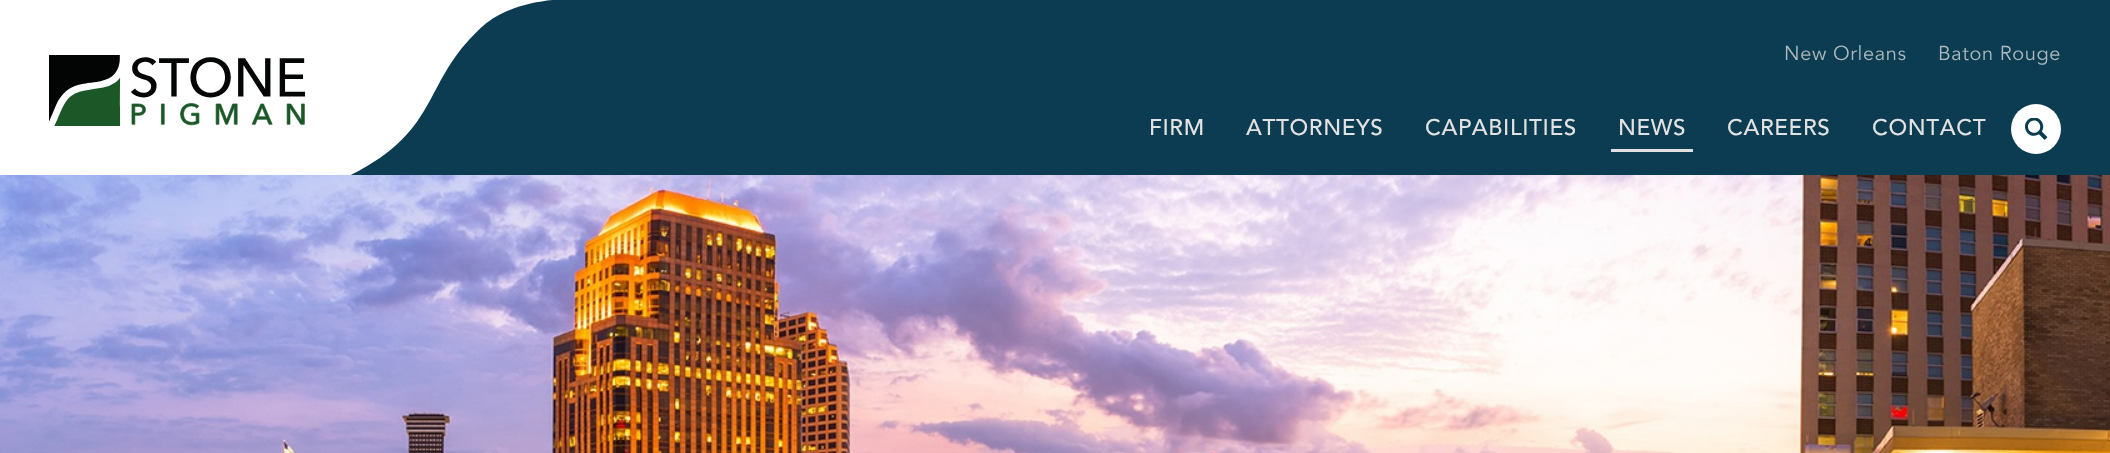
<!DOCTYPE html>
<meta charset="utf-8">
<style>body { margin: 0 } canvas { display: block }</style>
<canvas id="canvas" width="2110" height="453"></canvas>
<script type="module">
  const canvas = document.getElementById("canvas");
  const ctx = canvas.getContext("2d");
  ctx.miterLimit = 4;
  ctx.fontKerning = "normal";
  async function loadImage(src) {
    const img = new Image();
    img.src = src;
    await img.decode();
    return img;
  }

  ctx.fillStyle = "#ffffff";
  ctx.fillRect(0, 0, 2110, 453);
  ctx.fillStyle = "#0c3c51";
  ctx.fillRect(350, 0, 1760, 175);
  ctx.drawImage(await loadImage("img1.png"), 0, 0, 552, 175);
  ctx.drawImage(await loadImage("img2.png"), 49, 55, 256, 71);
  ctx.letterSpacing = "0.6px";
  ctx.font = "20px Avenir";
  ctx.fillStyle = "#adb9be";
  ctx.fillText("New Orleans", 1784, 60);
  ctx.fillText("Baton Rouge", 1938, 60);
  ctx.fillStyle = "#ffffff";
  ctx.beginPath();
  ctx.arc(2036, 129, 25, 0, Math.PI * 2);
  ctx.fill();
  ctx.drawImage(await loadImage("img3.png"), 2025, 118, 23, 22);
  ctx.font = "22.5px 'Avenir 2'";
  ctx.fillStyle = "#e2e2e2";
  ctx.fillText("FIRM", 1149, 135);
  ctx.fillText("ATTORNEYS", 1246, 135);
  ctx.fillText("CAPABILITIES", 1425, 135);
  ctx.fillRect(1611, 149, 82, 3);
  ctx.fillText("NEWS", 1618, 135);
  ctx.fillText("CAREERS", 1727, 135);
  ctx.fillText("CONTACT", 1872, 135);
  ctx.drawImage(await loadImage("img4.png"), 0, 175, 2110, 278);
</script>
